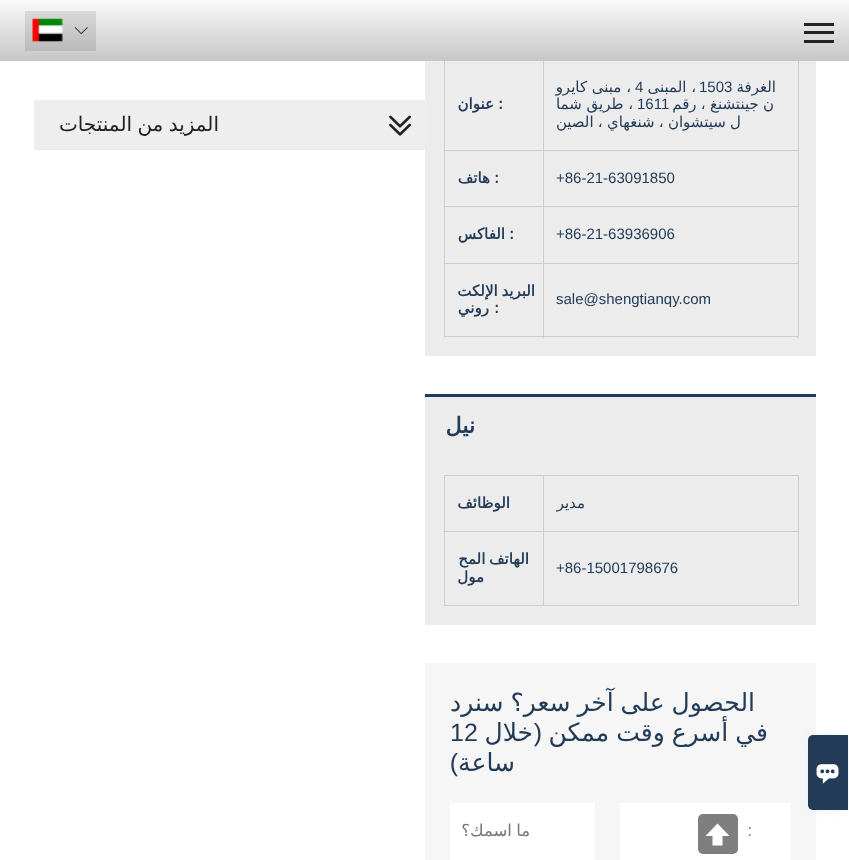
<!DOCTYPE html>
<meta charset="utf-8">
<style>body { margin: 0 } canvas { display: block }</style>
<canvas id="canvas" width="849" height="860"></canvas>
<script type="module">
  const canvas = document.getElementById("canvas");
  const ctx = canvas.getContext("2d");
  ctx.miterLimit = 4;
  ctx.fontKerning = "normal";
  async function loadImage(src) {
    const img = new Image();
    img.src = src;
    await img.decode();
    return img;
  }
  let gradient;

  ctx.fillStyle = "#ffffff";
  ctx.fillRect(0, 0, 849, 860);
  ctx.fillStyle = "#f6f6f6";
  ctx.fillRect(425, 663, 391, 197);
  ctx.fillStyle = "#eaf0f6";
  ctx.filter = "blur(5px)";
  ctx.beginPath();
  ctx.roundRect(808, 735, 40, 75, 5);
  ctx.fill();
  ctx.filter = "none";
  ctx.fillStyle = "#223c58";
  ctx.beginPath();
  ctx.roundRect(808, 735, 40, 75, [5, 0, 0, 5]);
  ctx.fill();
  ctx.drawImage(await loadImage("img1.png"), 816, 764, 23, 20);
  ctx.fillStyle = "#ececec";
  ctx.fillRect(425, 61, 391, 295);
  ctx.fillStyle = "#cccccc";
  ctx.fillRect(543, 150, 256, 1);
  ctx.fillRect(543, 206, 256, 1);
  ctx.fillRect(543, 263, 256, 1);
  ctx.fillRect(798, 263, 1, 75);
  ctx.fillRect(543, 336, 256, 1);
  ctx.fillRect(543, 263, 1, 75);
  ctx.fillRect(444, 263, 100, 1);
  ctx.fillRect(543, 206, 1, 58);
  ctx.fillRect(444, 206, 100, 1);
  ctx.fillRect(543, 150, 1, 58);
  ctx.fillRect(444, 150, 100, 1);
  ctx.fillRect(543, 59, 1, 92);
  ctx.fillRect(798, 206, 1, 58);
  ctx.fillRect(798, 59, 1, 149);
  ctx.fillRect(444, 336, 100, 1);
  ctx.fillRect(444, 263, 1, 75);
  ctx.fillRect(444, 206, 1, 58);
  ctx.fillRect(444, 59, 1, 149);
  gradient = ctx.createLinearGradient(425, 0, 425, 61);
  gradient.addColorStop(0, "#fafafa");
  gradient.addColorStop(1, "#c6c6c6");
  ctx.fillStyle = gradient;
  ctx.fillRect(0, 0, 849, 61);
  gradient = ctx.createLinearGradient(425, 0, 425, 61);
  gradient.addColorStop(0, "#e1e1e1");
  gradient.addColorStop(1, "#b2b2b2");
  ctx.fillStyle = gradient;
  ctx.fillRect(25, 11, 71, 40);
  ctx.fillStyle = "#222222";
  ctx.fillRect(804, 31, 30, 3);
  ctx.fillRect(804, 23, 30, 3);
  ctx.fillRect(804, 40, 30, 3);
  ctx.drawImage(await loadImage("img2.png"), 32, 18, 31, 24);
  ctx.drawImage(await loadImage("img3.png"), 74, 27, 14, 8);
  ctx.direction = "rtl";
  ctx.font = "15px DejaVu Sans";
  ctx.fillStyle = "#223c58";
  ctx.fillText("الغرفة", 776, 92);
  ctx.direction = "ltr";
  ctx.font = "15px Liberation Sans";
  ctx.fillText("1503", 699, 92);
  ctx.direction = "rtl";
  ctx.font = "15px DejaVu Sans";
  ctx.fillText("، المبنى", 696, 92);
  ctx.direction = "ltr";
  ctx.font = "15px Liberation Sans";
  ctx.fillText("4", 635, 92);
  ctx.direction = "rtl";
  ctx.font = "15px DejaVu Sans";
  ctx.fillText("، مبنى كايرو", 631, 92);
  ctx.wordSpacing = "-0.5px";
  ctx.fillText("ن جينتشنغ ، رقم", 774, 109);
  ctx.wordSpacing = "0px";
  ctx.direction = "ltr";
  ctx.font = "15px Liberation Sans";
  ctx.fillText("1611", 637, 109);
  ctx.direction = "rtl";
  ctx.font = "15px DejaVu Sans";
  ctx.fillText("، طريق شما", 633, 109);
  ctx.wordSpacing = "-0.5px";
  ctx.fillText("ل سيتشوان ، شنغهاي ، الصين", 741, 127);
  ctx.wordSpacing = "0px";
  ctx.direction = "ltr";
  ctx.font = "bold 15px DejaVu Sans";
  ctx.fillText(":", 498, 109);
  ctx.direction = "rtl";
  ctx.fillText("عنوان", 494, 109);
  ctx.direction = "ltr";
  ctx.font = "15px Liberation Sans";
  ctx.fillText("+86-21-63091850", 556, 183);
  ctx.font = "bold 15px DejaVu Sans";
  ctx.fillText(":", 494, 183);
  ctx.direction = "rtl";
  ctx.fillText("هاتف", 490, 183);
  ctx.direction = "ltr";
  ctx.font = "15px Liberation Sans";
  ctx.fillText("+86-21-63936906", 556, 239);
  ctx.font = "bold 15px DejaVu Sans";
  ctx.fillText(":", 509, 239);
  ctx.direction = "rtl";
  ctx.fillText("الفاكس", 505, 239);
  ctx.direction = "ltr";
  ctx.font = "15px Liberation Sans";
  ctx.fillText("sale@shengtianqy.com", 556, 304);
  ctx.wordSpacing = "-1px";
  ctx.direction = "rtl";
  ctx.font = "bold 15px DejaVu Sans";
  ctx.fillText("البريد الإلكت", 535, 296);
  ctx.wordSpacing = "0px";
  ctx.direction = "ltr";
  ctx.fillText(":", 494, 313);
  ctx.direction = "rtl";
  ctx.fillText("روني", 489, 313);
  ctx.fillRect(425, 394, 391, 3);
  ctx.fillStyle = "#ececec";
  ctx.fillRect(425, 397, 391, 228);
  ctx.font = "bold 22px DejaVu Sans";
  ctx.fillStyle = "#223c58";
  ctx.fillText("نيل", 475, 433);
  ctx.fillStyle = "#cccccc";
  ctx.fillRect(543, 475, 256, 1);
  ctx.fillRect(543, 531, 256, 1);
  ctx.fillRect(798, 531, 1, 75);
  ctx.fillRect(798, 475, 1, 58);
  ctx.fillRect(543, 605, 256, 1);
  ctx.fillRect(543, 531, 1, 75);
  ctx.fillRect(444, 531, 100, 1);
  ctx.fillRect(543, 475, 1, 58);
  ctx.font = "15px DejaVu Sans";
  ctx.fillStyle = "#223c58";
  ctx.fillText("مدير", 585, 508);
  ctx.fillStyle = "#cccccc";
  ctx.fillRect(444, 475, 100, 1);
  ctx.fillRect(444, 605, 100, 1);
  ctx.fillRect(444, 531, 1, 75);
  ctx.fillRect(444, 475, 1, 58);
  ctx.font = "bold 15px DejaVu Sans";
  ctx.fillStyle = "#223c58";
  ctx.fillText("الوظائف", 510, 508);
  ctx.direction = "ltr";
  ctx.font = "15px Liberation Sans";
  ctx.fillText("+86-15001798676", 556, 573);
  ctx.wordSpacing = "-1px";
  ctx.direction = "rtl";
  ctx.font = "bold 15px DejaVu Sans";
  ctx.fillText("الهاتف المح", 529, 564);
  ctx.wordSpacing = "0px";
  ctx.fillText("مول", 484, 582);
  ctx.wordSpacing = "-1px";
  ctx.font = "25px DejaVu Sans";
  ctx.fillText("الحصول على آخر سعر؟ سنرد", 755, 711);
  ctx.fillText("في أسرع وقت ممكن", 768, 741);
  ctx.wordSpacing = "0px";
  ctx.font = "25px Liberation Sans";
  ctx.fillText("(", 542, 741);
  ctx.font = "25px DejaVu Sans";
  ctx.fillText("خلال", 533, 741);
  ctx.direction = "ltr";
  ctx.font = "25px Liberation Sans";
  ctx.fillText("12", 450, 741);
  ctx.direction = "rtl";
  ctx.font = "25px DejaVu Sans";
  ctx.fillText("ساعة", 515, 771);
  ctx.font = "25px Liberation Sans";
  ctx.fillText(")", 458, 771);
  ctx.fillStyle = "#ffffff";
  ctx.fillRect(620, 803, 171, 57);
  ctx.font = "16.5px Liberation Sans";
  ctx.fillStyle = "#757575";
  ctx.fillText(":", 752, 836);
  ctx.fillStyle = "#ffffff";
  ctx.fillRect(450, 803, 145, 57);
  ctx.wordSpacing = "-1px";
  ctx.font = "16.5px DejaVu Sans";
  ctx.fillStyle = "#757575";
  ctx.fillText("ما اسمك؟", 530, 836);
  ctx.fillStyle = "#eeeeee";
  ctx.fillRect(34, 100, 391, 50);
  ctx.drawImage(await loadImage("img4.png"), 389, 115, 22, 21);
  ctx.font = "20px DejaVu Sans";
  ctx.fillStyle = "#222222";
  ctx.fillText("المزيد من المنتجات", 219, 131);
  ctx.fillStyle = "rgba(0, 0, 0, 0.5)";
  ctx.beginPath();
  ctx.roundRect(698, 814, 40, 40, 5);
  ctx.fill();
  ctx.fillStyle = "#ffffff";
  ctx.beginPath();
  ctx.moveTo(729.5, 836);
  ctx.lineTo(717.5, 823.5);
  ctx.lineTo(705.5, 836);
  ctx.lineTo(712.5, 836);
  ctx.lineTo(712.5, 845.5);
  ctx.lineTo(722.5, 845.5);
  ctx.lineTo(722.5, 836);
  ctx.closePath();
  ctx.fill();
</script>
